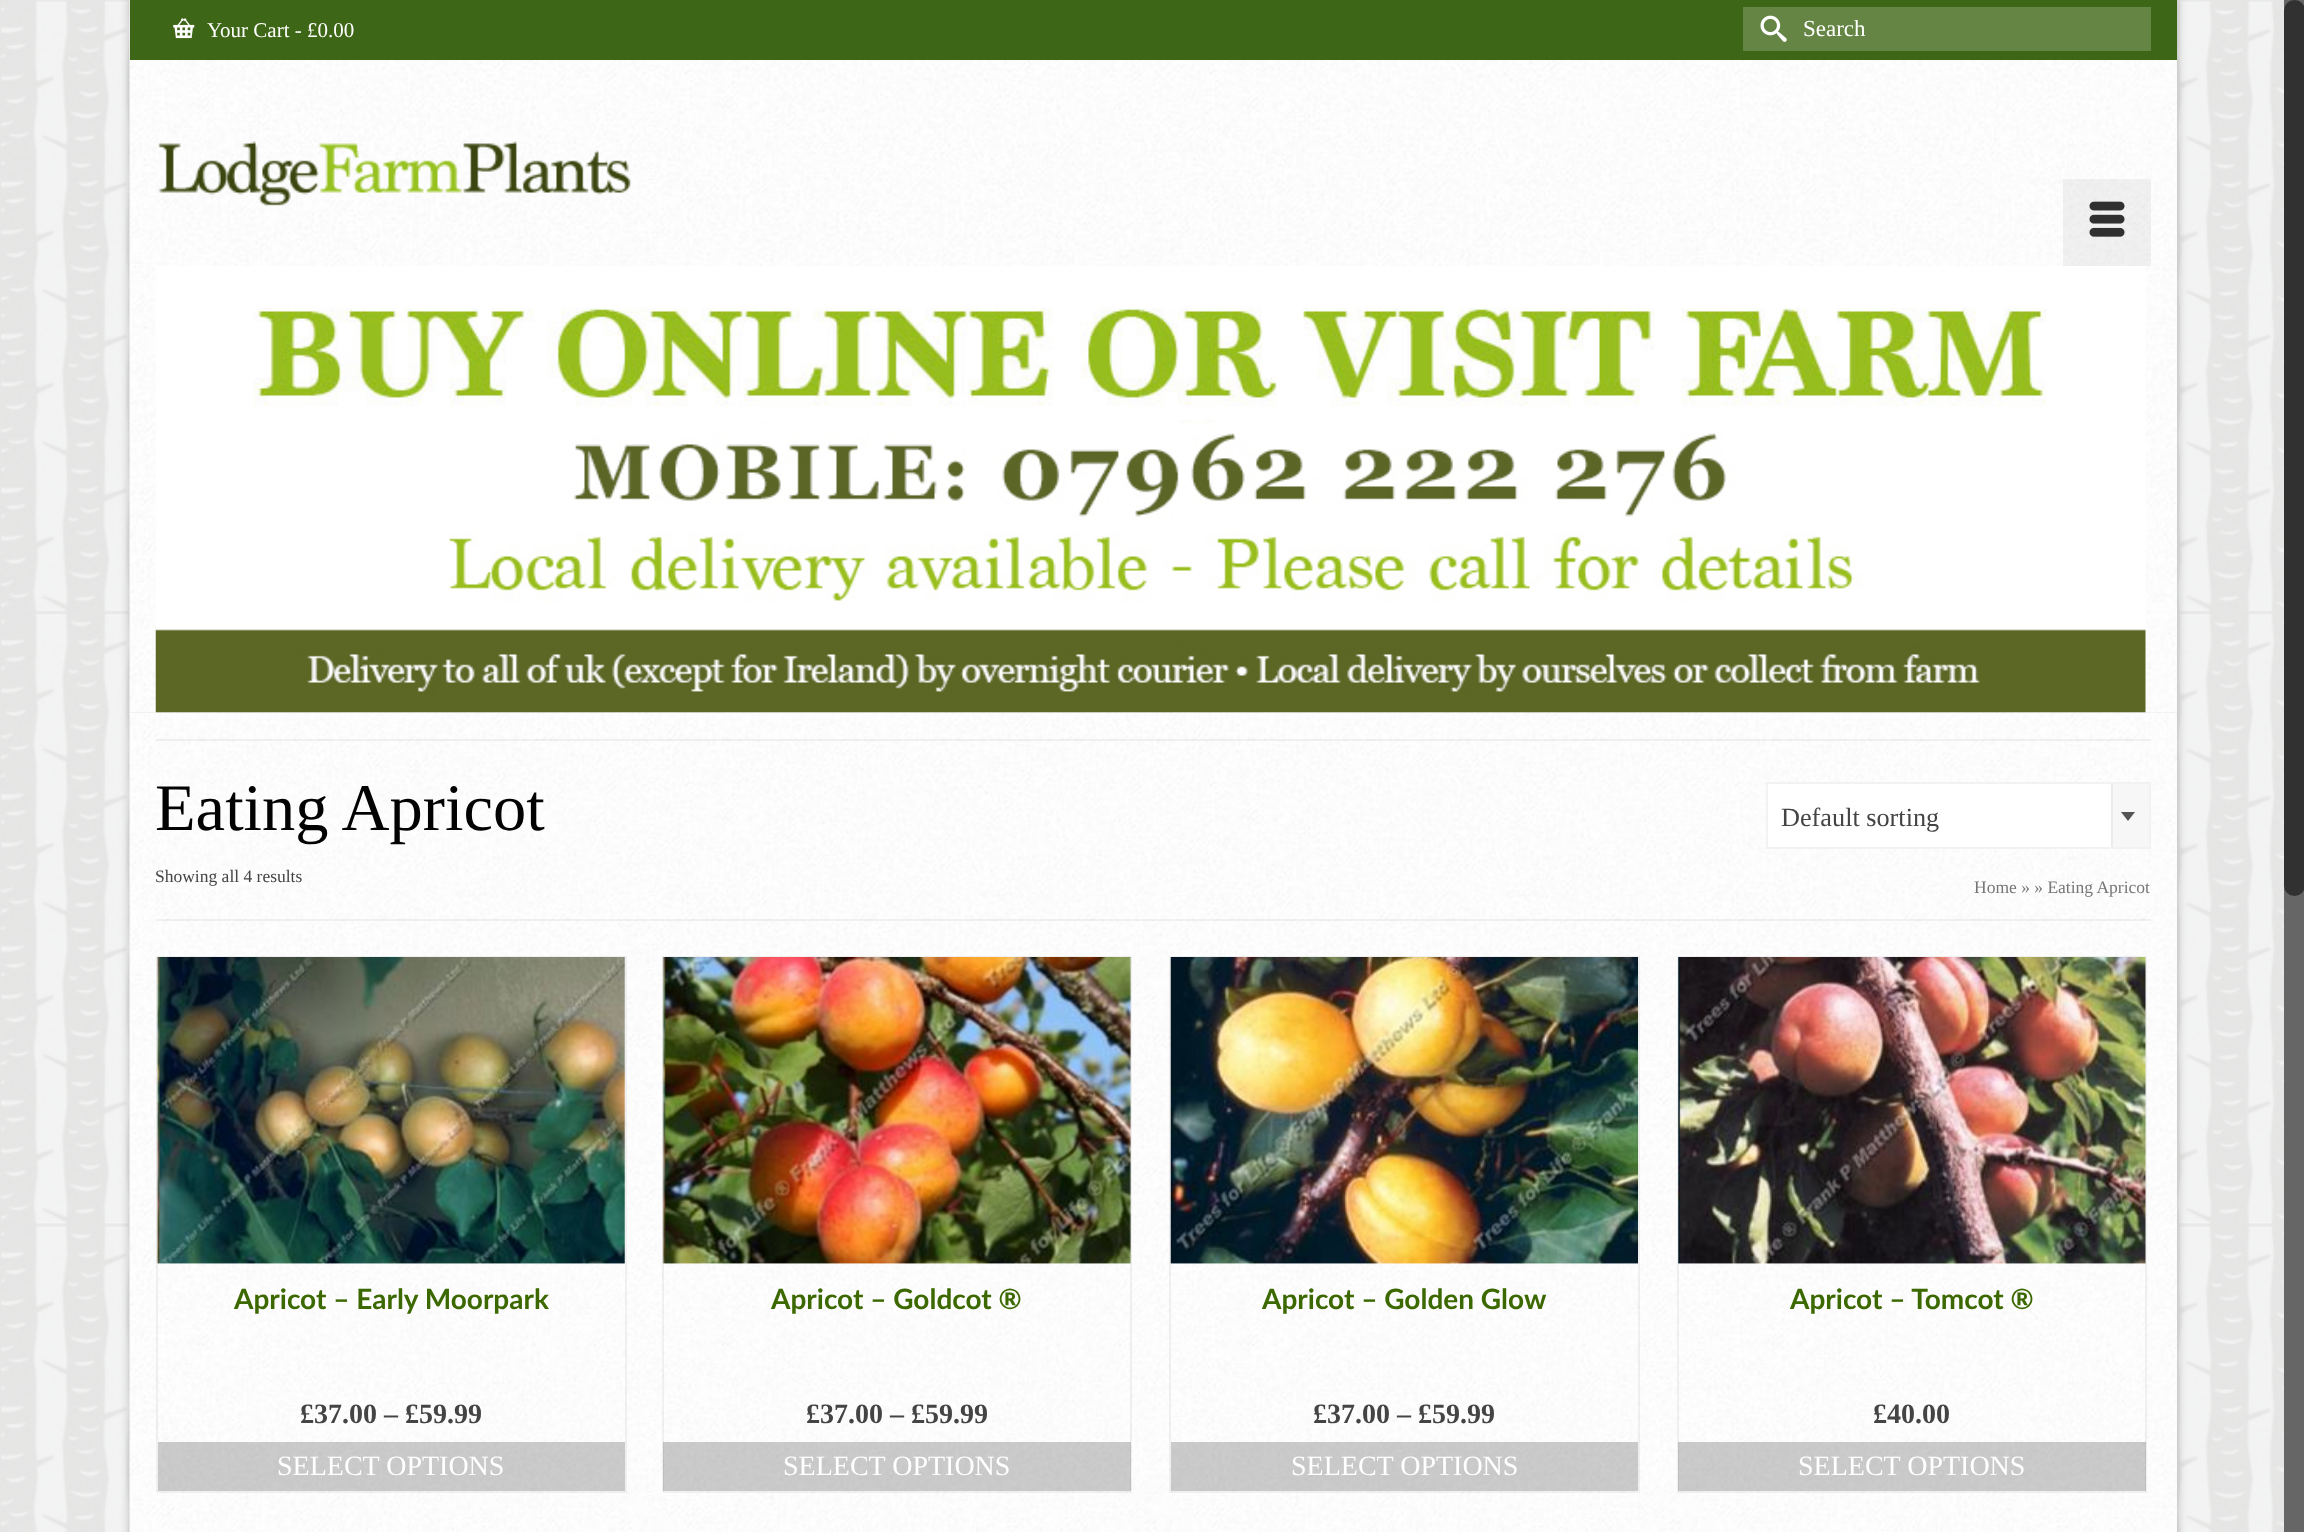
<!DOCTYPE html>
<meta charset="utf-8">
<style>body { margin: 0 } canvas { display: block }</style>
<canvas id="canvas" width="2304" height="1532"></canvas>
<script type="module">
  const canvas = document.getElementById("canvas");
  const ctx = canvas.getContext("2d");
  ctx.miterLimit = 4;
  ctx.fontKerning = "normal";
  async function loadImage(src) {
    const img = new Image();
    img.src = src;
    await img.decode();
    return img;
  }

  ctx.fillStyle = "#ffffff";
  ctx.fillRect(0, 0, 2304, 1532);
  ctx.drawImage(await loadImage("img1.png"), 0, 0, 2284, 1532);
  ctx.fillStyle = "rgba(0, 0, 0, 0.16)";
  ctx.filter = "blur(4.5px)";
  ctx.beginPath();
  ctx.rect(128, -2, 2051, 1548);
  ctx.fill();
  ctx.filter = "none";
  ctx.drawImage(await loadImage("img2.png"), 129, 0, 2048, 713);
  ctx.fillStyle = "#3e6617";
  ctx.fillRect(130, 0, 2047, 60);
  ctx.drawImage(await loadImage("img3.png"), 173, 18, 22, 21);
  ctx.font = "21px Liberation Serif";
  ctx.fillStyle = "#ffffff";
  ctx.fillText("Your Cart - £0.00", 207, 37);
  ctx.fillStyle = "#658545";
  ctx.fillRect(1743, 7, 408, 44);
  ctx.drawImage(await loadImage("img4.png"), 1760, 15, 27, 27);
  ctx.font = "23px Liberation Serif";
  ctx.fillStyle = "#ffffff";
  ctx.fillText("Search", 1803, 36);
  ctx.drawImage(await loadImage("img5.png"), 158, 141, 473, 65);
  ctx.fillStyle = "rgba(0, 0, 0, 0.05)";
  ctx.fillRect(2063, 179, 88, 87);
  ctx.drawImage(await loadImage("img6.png"), 2089, 201, 36, 36);
  ctx.drawImage(await loadImage("img8.png"), 129, 712, 2048, 820);
  ctx.drawImage(await loadImage("img7.png"), 155, 266, 1991, 447);
  ctx.fillRect(156, 739, 1995, 2);
  ctx.fillRect(156, 919, 1995, 2);
  ctx.font = "66.5px Liberation Serif";
  ctx.fillStyle = "#020202";
  ctx.fillText("Eating Apricot", 155, 830);
  ctx.font = "17.5px Liberation Serif";
  ctx.fillStyle = "#444444";
  ctx.fillText("Showing all 4 results", 155, 882);
  ctx.fillStyle = "#ffffff";
  ctx.fillRect(1768, 784, 343, 63);
  ctx.strokeStyle = "#f2f2f2";
  ctx.lineWidth = 2;
  ctx.strokeRect(1767, 783, 383, 65);
  ctx.font = "26.25px Liberation Serif";
  ctx.fillStyle = "#444444";
  ctx.fillText("Default sorting", 1781, 826);
  ctx.fillStyle = "#f7f7f7";
  ctx.fillRect(2113, 784, 36, 63);
  ctx.fillStyle = "#ebebeb";
  ctx.fillRect(2111, 784, 2, 63);
  ctx.fillStyle = "#555555";
  ctx.beginPath();
  ctx.moveTo(2121, 812);
  ctx.lineTo(2135, 812);
  ctx.lineTo(2128, 821);
  ctx.closePath();
  ctx.fill();
  ctx.font = "17.5px Liberation Serif";
  ctx.fillStyle = "#777777";
  ctx.fillText("Home » » Eating Apricot", 1974, 893);
  ctx.strokeStyle = "rgba(0, 0, 0, 0.05)";
  ctx.strokeRect(157, 957, 469, 535);
  ctx.drawImage(await loadImage("img9.png"), 156, 957, 469, 307);
  ctx.font = "bold 28px Lato";
  ctx.fillStyle = "#3c6800";
  ctx.fillText("Apricot – Early Moorpark", 234, 1309);
  ctx.font = "bold 28px Liberation Serif";
  ctx.fillStyle = "#444444";
  ctx.fillText("£37.00 – £59.99", 300, 1423);
  ctx.fillStyle = "rgba(0, 0, 0, 0.2)";
  ctx.fillRect(158, 1442, 467, 49);
  ctx.font = "28px Liberation Serif";
  ctx.fillStyle = "#ffffff";
  ctx.fillText("SELECT OPTIONS", 277, 1475);
  ctx.strokeRect(663, 957, 468, 535);
  ctx.drawImage(await loadImage("img10.png"), 662, 957, 469, 307);
  ctx.font = "bold 28px Lato";
  ctx.fillStyle = "#3c6800";
  ctx.fillText("Apricot – Goldcot ®", 771, 1309);
  ctx.font = "bold 28px Liberation Serif";
  ctx.fillStyle = "#444444";
  ctx.fillText("£37.00 – £59.99", 806, 1423);
  ctx.fillStyle = "rgba(0, 0, 0, 0.2)";
  ctx.fillRect(663, 1442, 468, 49);
  ctx.font = "28px Liberation Serif";
  ctx.fillStyle = "#ffffff";
  ctx.fillText("SELECT OPTIONS", 783, 1475);
  ctx.strokeRect(1170, 957, 469, 535);
  ctx.drawImage(await loadImage("img11.png"), 1170, 957, 468, 307);
  ctx.font = "bold 28px Lato";
  ctx.fillStyle = "#3c6800";
  ctx.fillText("Apricot – Golden Glow", 1262, 1309);
  ctx.font = "bold 28px Liberation Serif";
  ctx.fillStyle = "#444444";
  ctx.fillText("£37.00 – £59.99", 1313, 1423);
  ctx.fillStyle = "rgba(0, 0, 0, 0.2)";
  ctx.fillRect(1171, 1442, 467, 49);
  ctx.font = "28px Liberation Serif";
  ctx.fillStyle = "#ffffff";
  ctx.fillText("SELECT OPTIONS", 1291, 1475);
  ctx.strokeRect(1678, 957, 468, 535);
  ctx.drawImage(await loadImage("img12.png"), 1678, 957, 468, 307);
  ctx.font = "bold 28px Lato";
  ctx.fillStyle = "#3c6800";
  ctx.fillText("Apricot – Tomcot ®", 1790, 1309);
  ctx.font = "bold 28px Liberation Serif";
  ctx.fillStyle = "#444444";
  ctx.fillText("£40.00", 1873, 1423);
  ctx.fillStyle = "rgba(0, 0, 0, 0.2)";
  ctx.fillRect(1678, 1442, 468, 49);
  ctx.font = "28px Liberation Serif";
  ctx.fillStyle = "#ffffff";
  ctx.fillText("SELECT OPTIONS", 1798, 1475);
  ctx.fillStyle = "#666666";
  ctx.fillRect(2284, 0, 20, 1532);
  ctx.fillStyle = "#313131";
  ctx.beginPath();
  ctx.roundRect(2284, 0, 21, 896, 10.5);
  ctx.fill();
</script>
